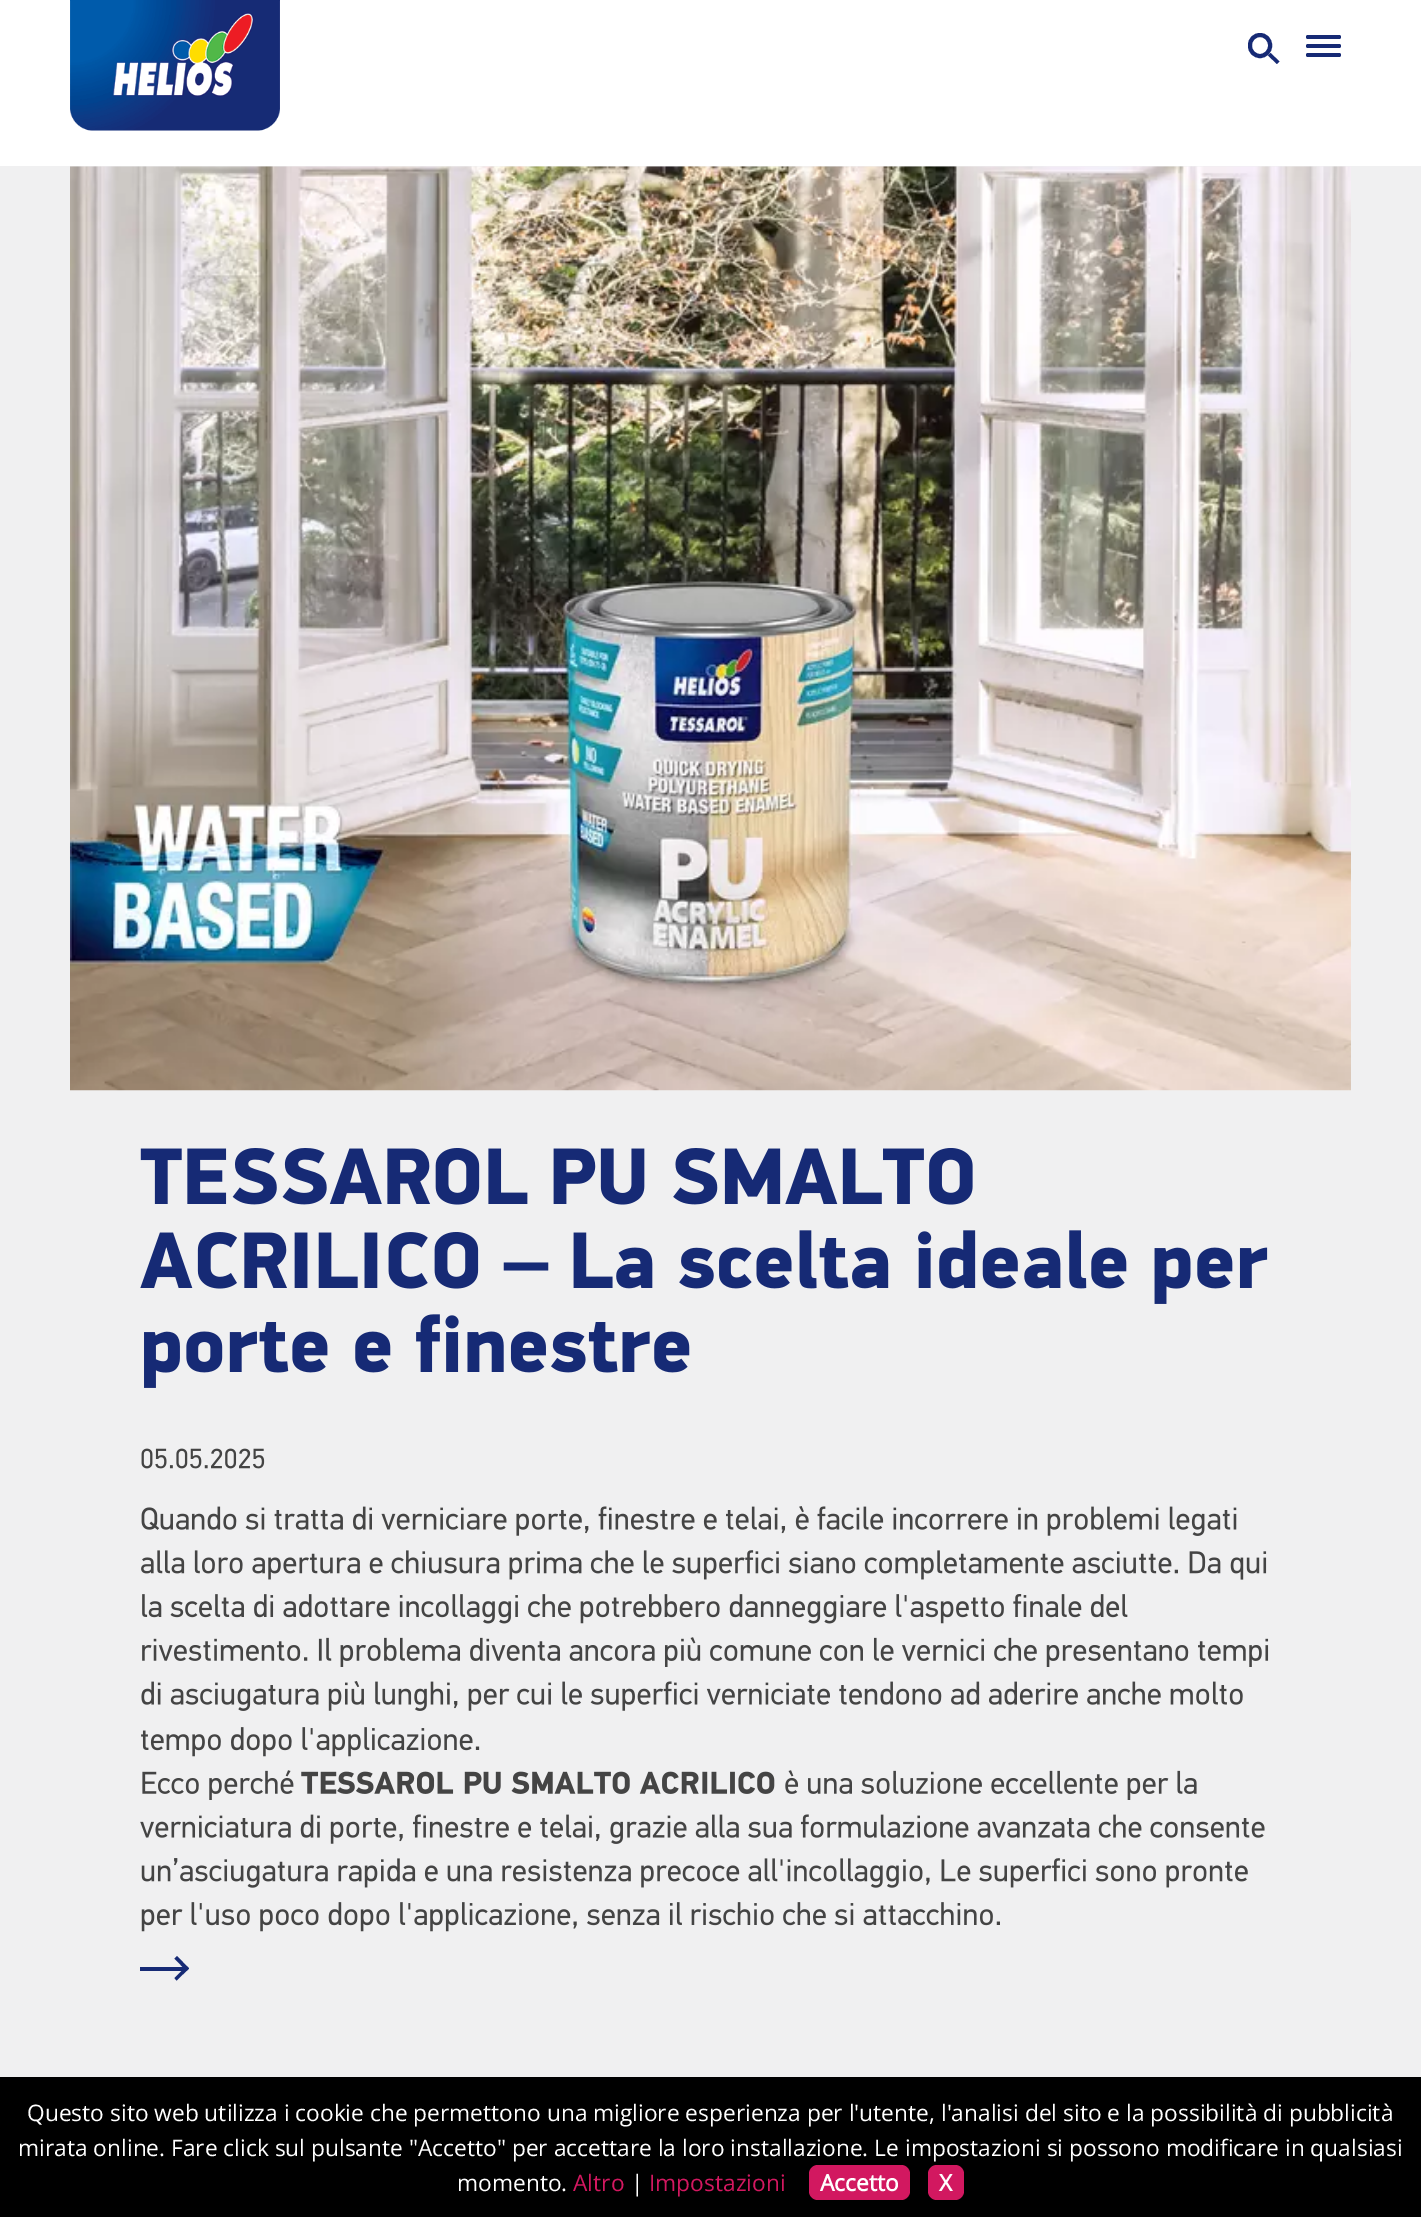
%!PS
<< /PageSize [1421 2217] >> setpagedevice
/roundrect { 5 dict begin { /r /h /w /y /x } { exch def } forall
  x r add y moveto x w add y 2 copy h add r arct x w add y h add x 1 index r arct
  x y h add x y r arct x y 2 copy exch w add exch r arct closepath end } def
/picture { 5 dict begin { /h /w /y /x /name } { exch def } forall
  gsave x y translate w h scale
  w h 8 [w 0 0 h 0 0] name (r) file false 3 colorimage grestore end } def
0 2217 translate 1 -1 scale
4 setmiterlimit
0.941 0.941 0.945 setrgbcolor
0 0 1421 2217 rectfill
1 setgray
0 0 1421 166 rectfill
(img1.rgb) 70 0 210 131 picture
0.086 0.165 0.459 setrgbcolor
4 setlinewidth
1250 35 20 21 10 roundrect stroke
newpath 1270.5 53 moveto 1279.5 61.5 lineto 1277 64 lineto 1268 55.5 lineto closepath fill
1306 44 35 4 2 roundrect fill
1306 35 35 4 2 roundrect fill
1306 53 35 4 2 roundrect fill
(img2.rgb) 70 166 1281 925 picture
(img3.rgb) 140 1148 833 57 picture
(img4.rgb) 140 1232 339 57 picture
/LiberationSans-Bold [80 0 0 -80 0 0] selectfont
504 1288 moveto (‒) show
(img5.rgb) 573 1230 695 74 picture
(img6.rgb) 144 1314 546 74 picture
(img7.rgb) 141 1448 124 21 picture
(img8.rgb) 141 1506 1096 30 picture
(img9.rgb) 141 1550 1126 30 picture
(img10.rgb) 142 1594 986 30 picture
(img11.rgb) 142 1637 1127 30 picture
(img12.rgb) 141 1681 1102 30 picture
(img13.rgb) 141 1727 339 30 picture
(img14.rgb) 142 1770 152 30 picture
(img15.rgb) 301 1771 474 23 picture
(img16.rgb) 785 1770 412 30 picture
(img17.rgb) 140 1814 1125 30 picture
(img18.rgb) 141 1858 1107 30 picture
(img19.rgb) 141 1902 859 30 picture
140 1967 44 4 rectfill
newpath 177 1956 moveto 189 1968.5 lineto 186.5 1971 lineto 174.5 1958.5 lineto closepath fill
newpath 186.5 1966 moveto 189 1968.5 lineto 176.5 1980.5 lineto 174.5 1978 lineto closepath fill
0 setgray
0 2077 1421 140 rectfill
/OpenSans-Regular [22.75 0 0 -22.75 0 0] selectfont
1 setgray
27 2121 moveto (Questo sito web utilizza i cookie che permettono una migliore esperienza per l'utente, l'analisi del sito e la possibilità di pubblicità) show
18 2156 moveto (mirata online. Fare click sul pulsante "Accetto" per accettare la loro installazione. Le impostazioni si possono modificare in qualsiasi) show
457 2191 moveto (momento.) show
0.824 0.094 0.376 setrgbcolor
573 2191 moveto (Altro) show
1 setgray
631 2191 moveto (|) show
0.824 0.094 0.376 setrgbcolor
649 2191 moveto (Impostazioni) show
809 2165 101 35 9 roundrect fill
/OpenSans-Bold [22.75 0 0 -22.75 0 0] selectfont
1 setgray
820 2191 moveto (Accetto) show
0.824 0.094 0.376 setrgbcolor
928 2165 36 35 9 roundrect fill
1 setgray
939 2191 moveto (X) show
showpage
